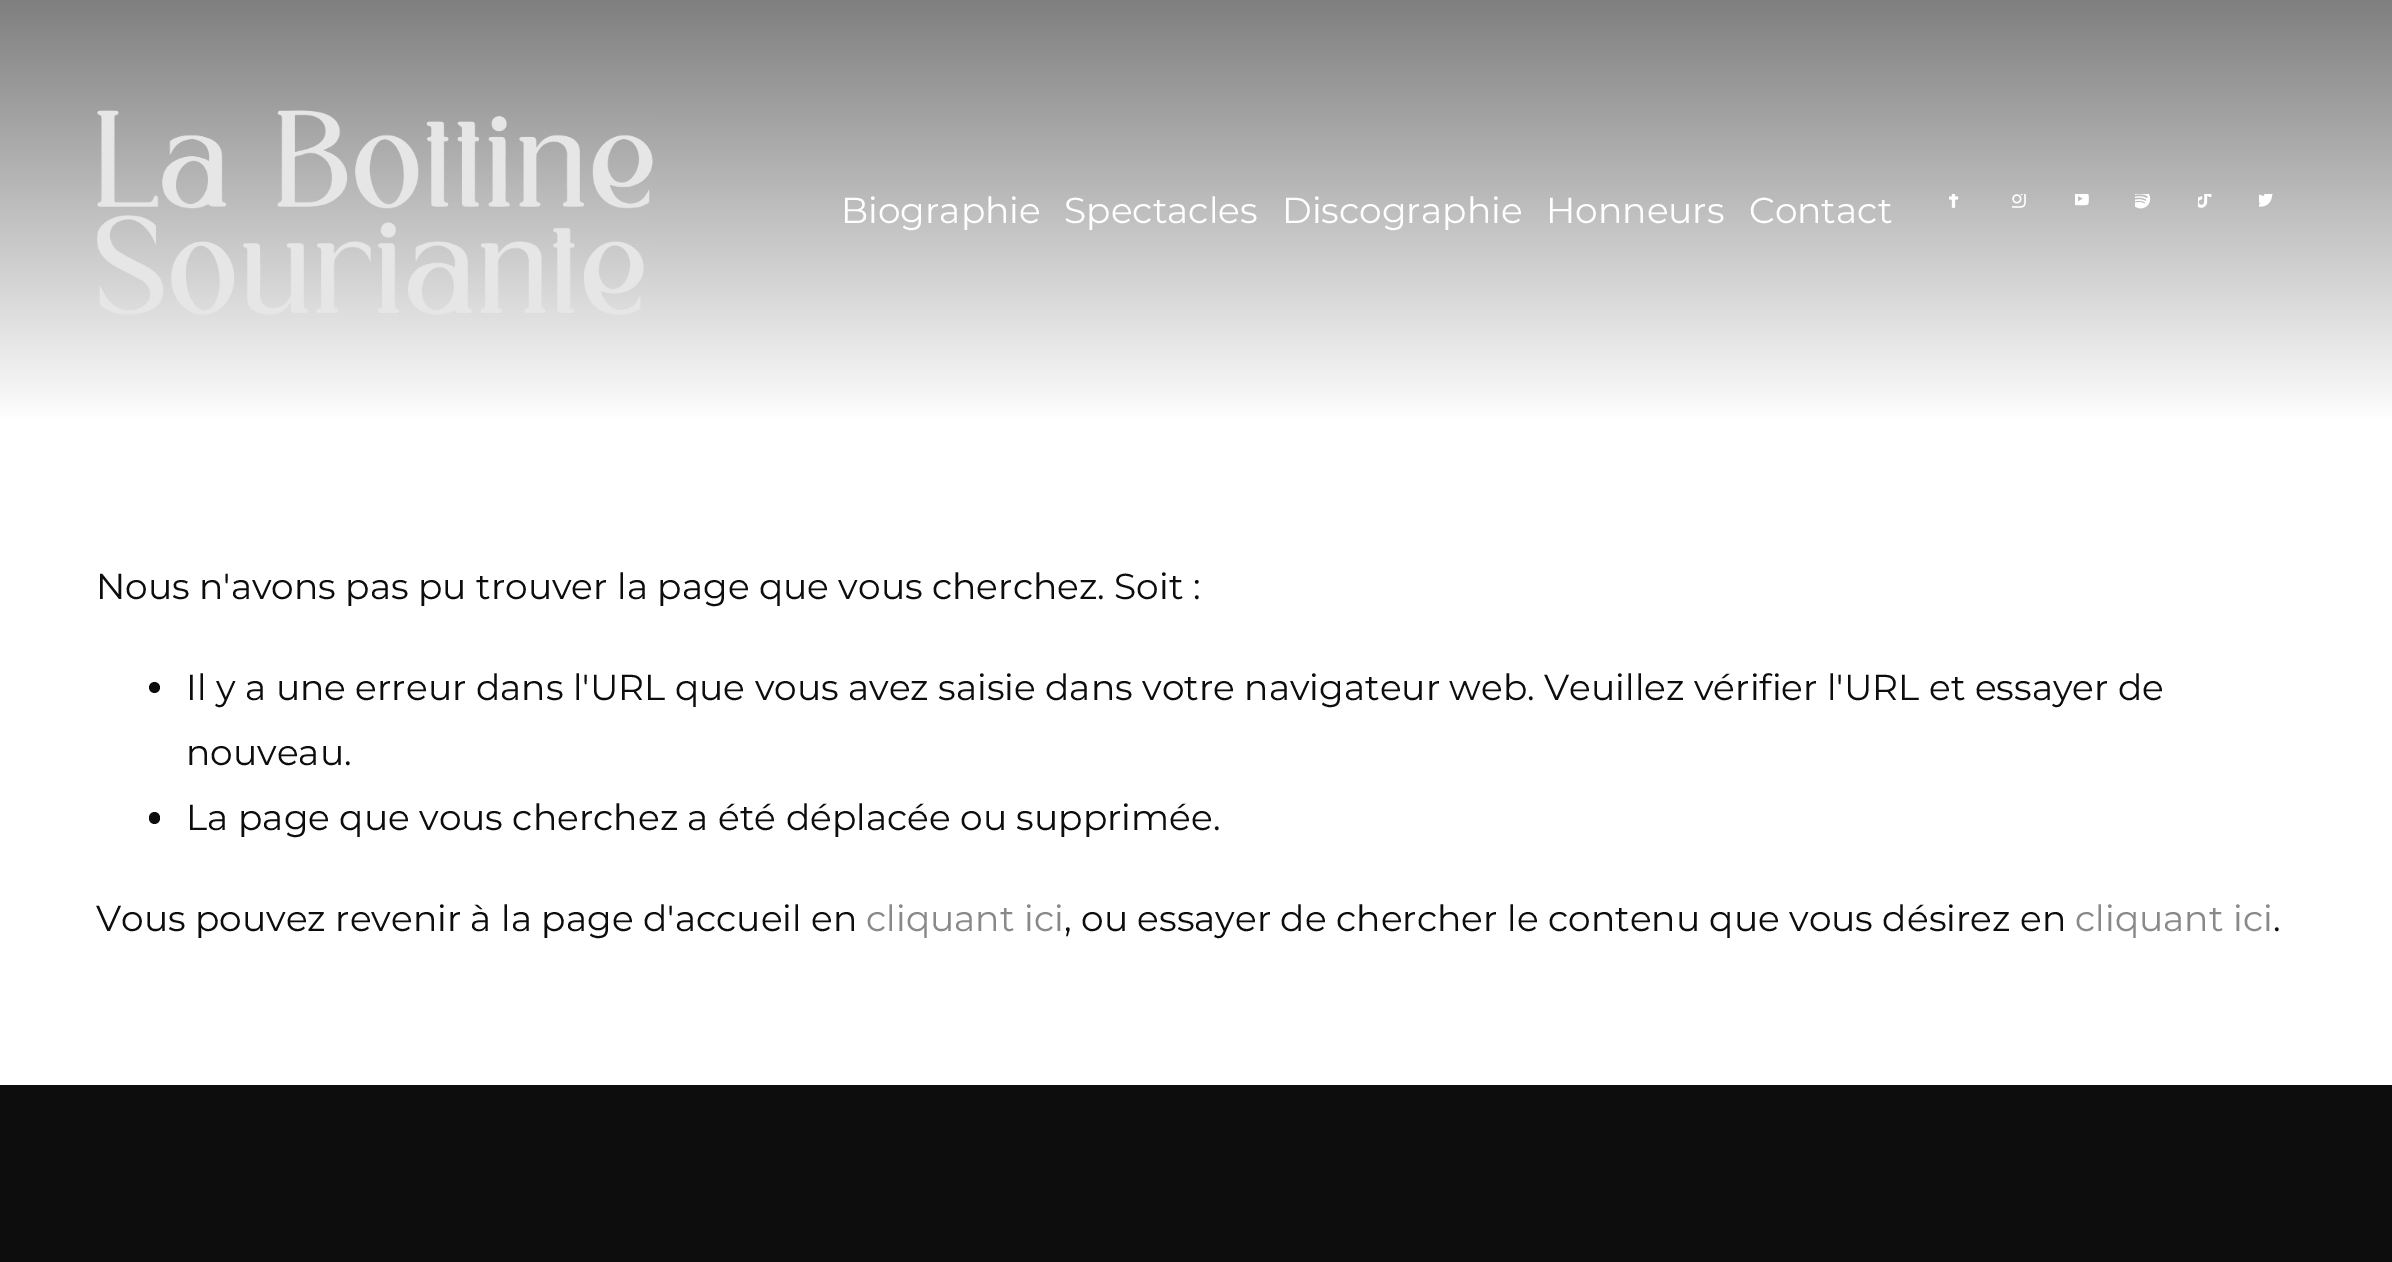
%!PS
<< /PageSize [2392 1262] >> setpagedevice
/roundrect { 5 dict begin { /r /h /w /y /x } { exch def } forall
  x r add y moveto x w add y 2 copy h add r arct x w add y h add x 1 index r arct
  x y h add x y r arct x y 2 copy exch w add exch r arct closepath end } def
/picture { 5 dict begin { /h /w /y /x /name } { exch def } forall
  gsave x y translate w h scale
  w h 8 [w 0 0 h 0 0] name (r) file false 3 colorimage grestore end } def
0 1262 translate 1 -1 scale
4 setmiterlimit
1 setgray
0 0 2392 1262 rectfill
gsave newpath 0 0 moveto 2392 0 lineto 2392 417 lineto 0 417 lineto closepath clip newpath
<< /ShadingType 2 /ColorSpace /DeviceRGB /Coords [1197 0 1197 425] /Extend [true true] /Function << /FunctionType 2 /Domain [0 1] /C0 [0.502 0.498 0.498] /C1 [1 1 1] /N 1 >> >> shfill grestore
(img1.rgb) 97 110 556 205 picture
/Montserrat-Regular [36 0 0 -36 0 0] selectfont
841 223 moveto (Biographie) show
1064 223 moveto (Spectacles) show
1282 223 moveto (Discographie) show
1546 223 moveto (Honneurs) show
1749 223 moveto (Contact) show
(img2.rgb) 1949 194 10 14 picture
(img3.rgb) 2012 194 14 14 picture
(img4.rgb) 2075 194 14 12 picture
(img5.rgb) 2135 194 16 15 picture
(img6.rgb) 2198 194 14 14 picture
(img7.rgb) 2259 194 14 13 picture
0.055 0.051 0.051 setrgbcolor
96 599 moveto (Nous n'avons pas pu trouver la page que vous cherchez. Soit :) show
newpath 154.5 687.5 5.5 0 360 arc closepath fill
186 700 moveto (Il y a une erreur dans l'URL que vous avez saisie dans votre navigateur web. Veuillez vérifier l'URL et essayer de) show
186 765 moveto (nouveau.) show
149 812 11 12 5.5 roundrect fill
186 830 moveto (La page que vous cherchez a été déplacée ou supprimée.) show
96 931 moveto (Vous pouvez revenir à la page d'accueil en) show
0.537 setgray
866 931 moveto (cliquant ici) show
0.055 0.051 0.051 setrgbcolor
1064 931 moveto (, ou essayer de chercher le contenu que vous désirez en) show
0.537 setgray
2075 931 moveto (cliquant ici) show
0.055 0.051 0.051 setrgbcolor
2273 931 moveto (.) show
0 1085 2392 177 rectfill
showpage
